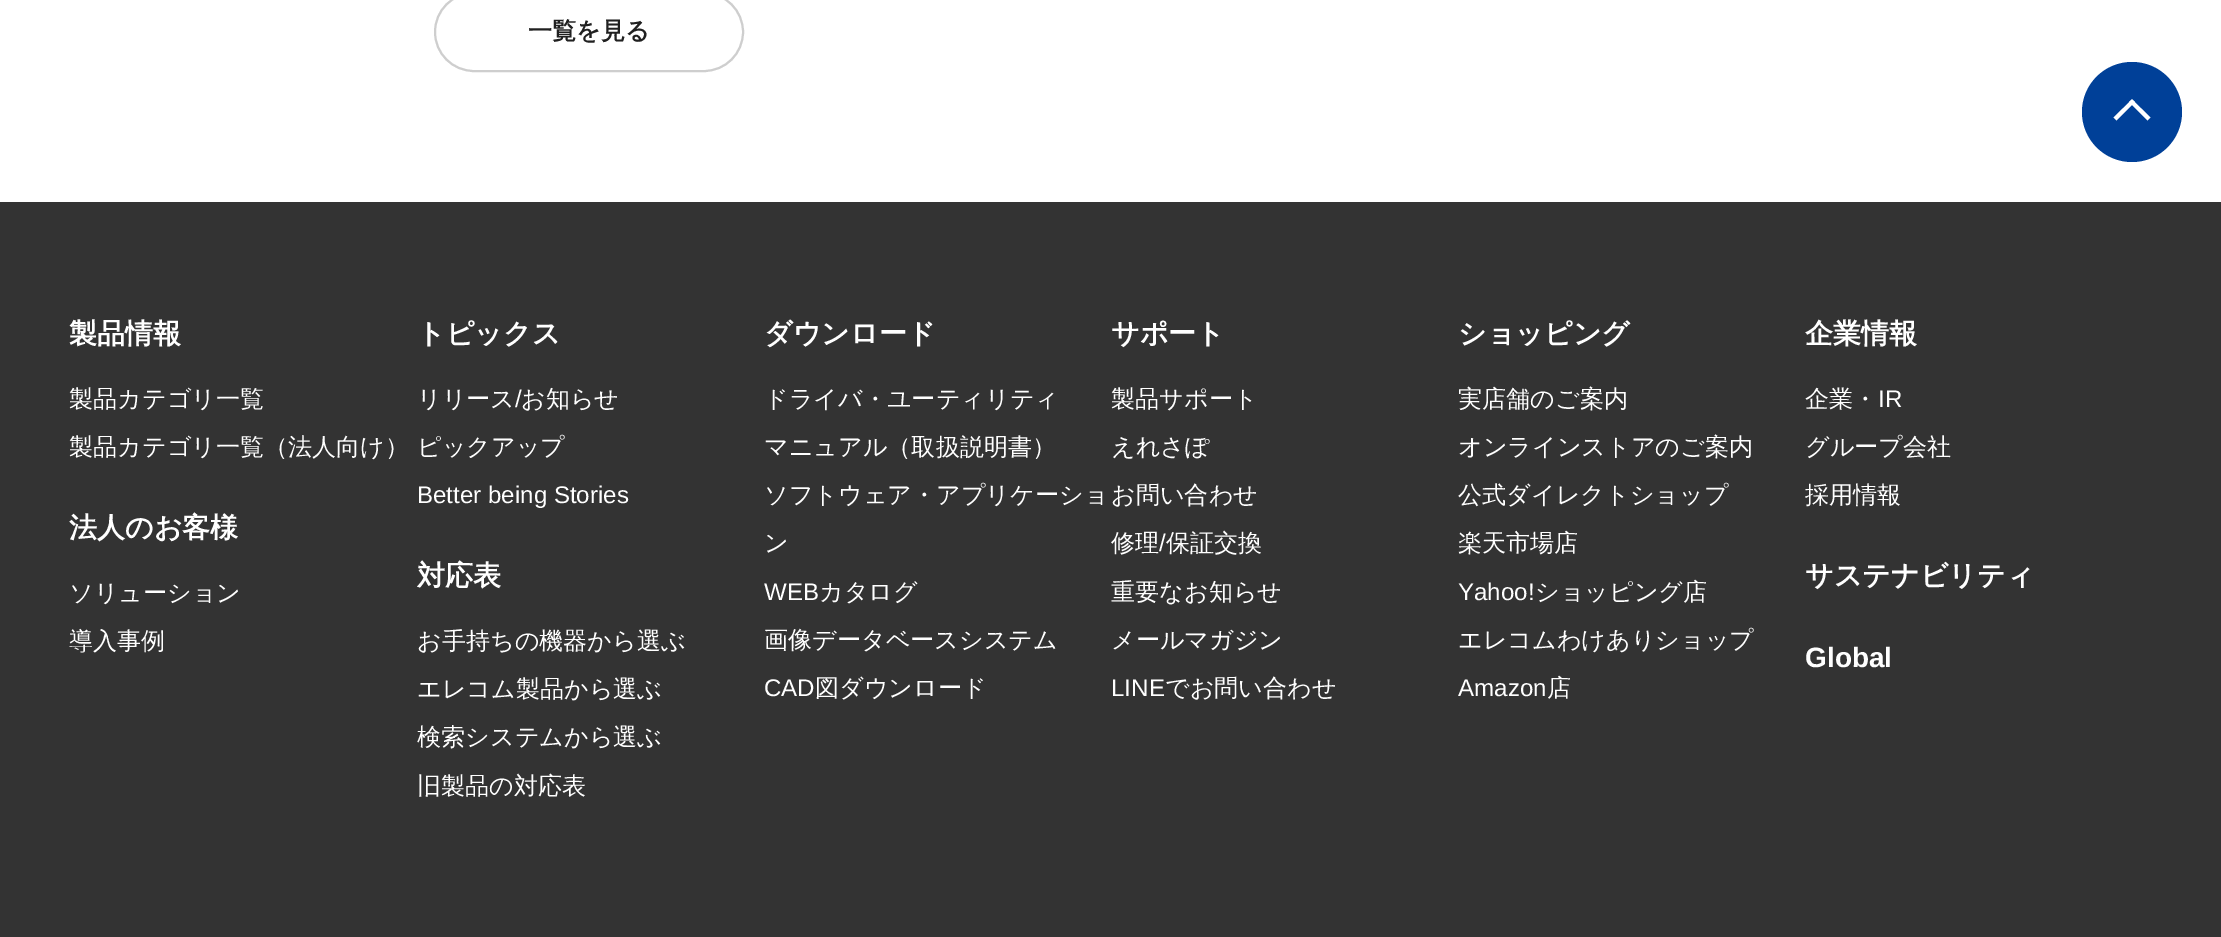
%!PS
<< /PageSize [2221 937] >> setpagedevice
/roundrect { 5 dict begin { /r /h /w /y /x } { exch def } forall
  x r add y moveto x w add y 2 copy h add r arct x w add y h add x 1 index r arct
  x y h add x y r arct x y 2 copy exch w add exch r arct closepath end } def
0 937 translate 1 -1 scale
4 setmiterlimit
1 setgray
0 0 2221 937 rectfill
0.808 setgray
2 setlinewidth
435 -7 308 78 39 roundrect stroke
/WenQuanYiZenHei-Bold [24.1 0 0 -24.1 0 0] selectfont
0.125 setgray
528 39 moveto (一覧を見る) show
0 0.251 0.596 setrgbcolor
newpath 2132 112 50 0 360 arc closepath fill
1 setgray
newpath 2132 99.5 moveto 2150.5 117.5 lineto 2147.5 120.5 lineto 2129 102 lineto closepath fill
newpath 2132 99.5 moveto 2135 102 lineto 2116.5 120.5 lineto 2113.5 117.5 lineto closepath fill
0.2 setgray
0 202 2221 735 rectfill
/WenQuanYiZenHei-Bold [28 0 0 -28 0 0] selectfont
1 setgray
69 343 moveto (製品情報) show
/WenQuanYiZenHei-Medium [24.1 0 0 -24.1 0 0] selectfont
69 407 moveto (製品カテゴリ一覧) show
69 455 moveto (製品カテゴリ一覧（法人向け）) show
/WenQuanYiZenHei-Bold [28 0 0 -28 0 0] selectfont
69 537 moveto (法人のお客様) show
/WenQuanYiZenHei-Medium [24.1 0 0 -24.1 0 0] selectfont
69 601 moveto (ソリューション) show
69 649 moveto (導入事例) show
/WenQuanYiZenHei-Bold [28 0 0 -28 0 0] selectfont
417 343 moveto (トピックス) show
/WenQuanYiZenHei-Medium [24.1 0 0 -24.1 0 0] selectfont
417 407 moveto (リリース) show
/LiberationSans-Regular [24.1 0 0 -24.1 0 0] selectfont
515 407 moveto (/) show
/WenQuanYiZenHei-Medium [24.1 0 0 -24.1 0 0] selectfont
521 407 moveto (お知らせ) show
417 455 moveto (ピックアップ) show
/LiberationSans-Regular [24.1 0 0 -24.1 0 0] selectfont
417 503 moveto (Better being Stories) show
/WenQuanYiZenHei-Bold [28 0 0 -28 0 0] selectfont
417 585 moveto (対応表) show
/WenQuanYiZenHei-Medium [24.1 0 0 -24.1 0 0] selectfont
417 649 moveto (お手持ちの機器から選ぶ) show
417 697 moveto (エレコム製品から選ぶ) show
417 745 moveto (検索システムから選ぶ) show
417 794 moveto (旧製品の対応表) show
/WenQuanYiZenHei-Bold [28 0 0 -28 0 0] selectfont
764 343 moveto (ダウンロード) show
/WenQuanYiZenHei-Medium [24.1 0 0 -24.1 0 0] selectfont
764 407 moveto (ドライバ・ユーティリティ) show
764 455 moveto (マニュアル（取扱説明書）) show
764 503 moveto (ソフトウェア・アプリケーショ) show
764 551 moveto (ン) show
/LiberationSans-Regular [24.1 0 0 -24.1 0 0] selectfont
764 600 moveto (WEB) show
/WenQuanYiZenHei-Medium [24.1 0 0 -24.1 0 0] selectfont
819 600 moveto (カタログ) show
764 648 moveto (画像データベースシステム) show
/LiberationSans-Regular [24.1 0 0 -24.1 0 0] selectfont
764 696 moveto (CAD) show
/WenQuanYiZenHei-Medium [24.1 0 0 -24.1 0 0] selectfont
815 696 moveto (図ダウンロード) show
/WenQuanYiZenHei-Bold [28 0 0 -28 0 0] selectfont
1111 343 moveto (サポート) show
/WenQuanYiZenHei-Medium [24.1 0 0 -24.1 0 0] selectfont
1111 407 moveto (製品サポート) show
1111 455 moveto (えれさぽ) show
1111 503 moveto (お問い合わせ) show
1111 551 moveto (修理) show
/LiberationSans-Regular [24.1 0 0 -24.1 0 0] selectfont
1159 551 moveto (/) show
/WenQuanYiZenHei-Medium [24.1 0 0 -24.1 0 0] selectfont
1166 551 moveto (保証交換) show
1111 600 moveto (重要なお知らせ) show
1111 648 moveto (メールマガジン) show
/LiberationSans-Regular [24.1 0 0 -24.1 0 0] selectfont
1111 696 moveto (LINE) show
/WenQuanYiZenHei-Medium [24.1 0 0 -24.1 0 0] selectfont
1165 696 moveto (でお問い合わせ) show
/WenQuanYiZenHei-Bold [28 0 0 -28 0 0] selectfont
1458 343 moveto (ショッピング) show
/WenQuanYiZenHei-Medium [24.1 0 0 -24.1 0 0] selectfont
1458 407 moveto (実店舗のご案内) show
1458 455 moveto (オンラインストアのご案内) show
1458 503 moveto (公式ダイレクトショップ) show
1458 551 moveto (楽天市場店) show
/LiberationSans-Regular [24.1 0 0 -24.1 0 0] selectfont
1458 600 moveto (Yahoo!) show
/WenQuanYiZenHei-Medium [24.1 0 0 -24.1 0 0] selectfont
1535 600 moveto (ショッピング店) show
1458 648 moveto (エレコムわけありショップ) show
/LiberationSans-Regular [24.1 0 0 -24.1 0 0] selectfont
1458 696 moveto (Amazon) show
/WenQuanYiZenHei-Medium [24.1 0 0 -24.1 0 0] selectfont
1547 696 moveto (店) show
/WenQuanYiZenHei-Bold [28 0 0 -28 0 0] selectfont
1805 343 moveto (企業情報) show
/WenQuanYiZenHei-Medium [24.1 0 0 -24.1 0 0] selectfont
1805 407 moveto (企業・) show
/LiberationSans-Regular [24.1 0 0 -24.1 0 0] selectfont
1878 407 moveto (IR) show
/WenQuanYiZenHei-Medium [24.1 0 0 -24.1 0 0] selectfont
1805 455 moveto (グループ会社) show
1805 503 moveto (採用情報) show
/WenQuanYiZenHei-Bold [28 0 0 -28 0 0] selectfont
1805 585 moveto (サステナビリティ) show
/LiberationSans-Bold [28 0 0 -28 0 0] selectfont
1805 667 moveto (Global) show
showpage
